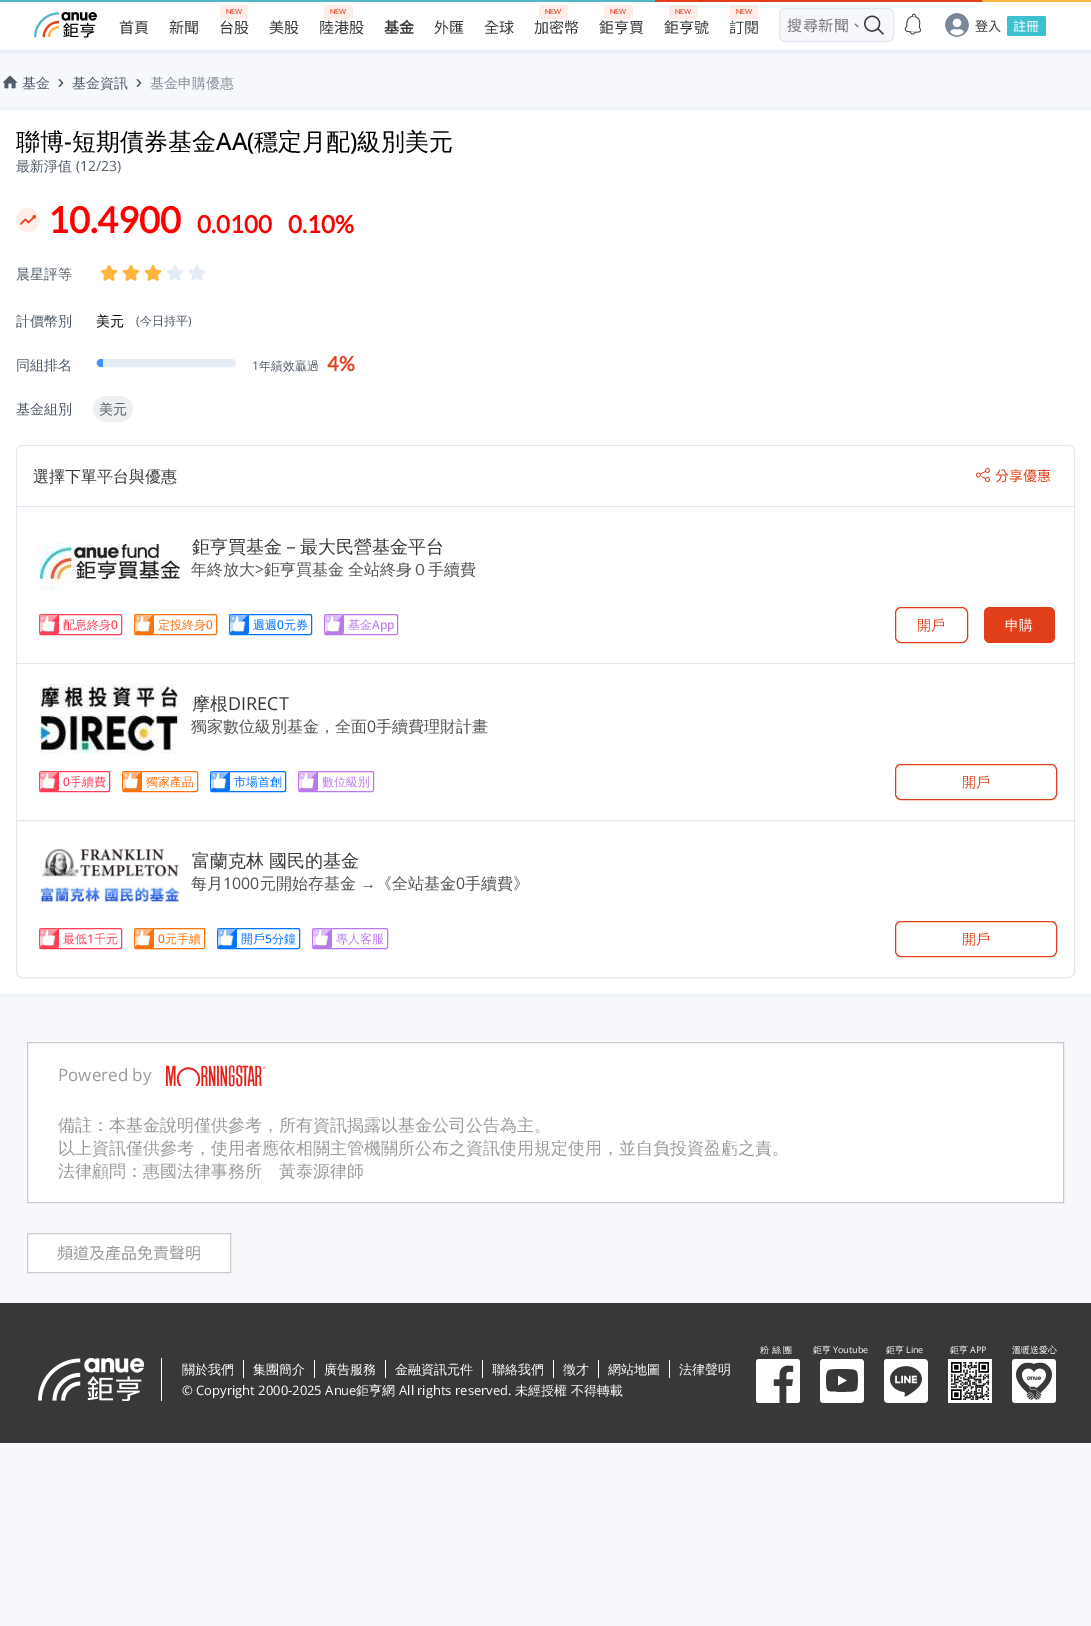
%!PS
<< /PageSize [1091 1626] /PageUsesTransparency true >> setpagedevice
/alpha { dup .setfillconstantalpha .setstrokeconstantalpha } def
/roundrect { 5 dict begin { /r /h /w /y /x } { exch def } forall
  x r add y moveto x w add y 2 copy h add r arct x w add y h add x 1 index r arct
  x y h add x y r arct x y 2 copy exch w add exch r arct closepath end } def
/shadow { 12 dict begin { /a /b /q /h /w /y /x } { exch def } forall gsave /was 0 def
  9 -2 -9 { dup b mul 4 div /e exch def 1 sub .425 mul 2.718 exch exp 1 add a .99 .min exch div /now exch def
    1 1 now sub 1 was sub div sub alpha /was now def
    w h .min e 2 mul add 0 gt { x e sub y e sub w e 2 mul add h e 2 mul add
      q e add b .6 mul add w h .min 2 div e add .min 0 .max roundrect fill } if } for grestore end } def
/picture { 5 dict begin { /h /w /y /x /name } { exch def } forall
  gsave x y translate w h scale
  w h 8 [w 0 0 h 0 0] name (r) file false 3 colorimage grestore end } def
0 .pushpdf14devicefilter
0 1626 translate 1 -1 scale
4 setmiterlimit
0.965 0.973 0.988 setrgbcolor
0 0 1091 1626 rectfill
0 0.255 0.561 setrgbcolor
0 2 1091 50 0 3 0.1 shadow
1 setgray
0 2 1091 48 rectfill
0.329 0.71 0.776 setrgbcolor
0 0 655 2 rectfill
0.878 0.247 0.098 setrgbcolor
655 0 327 2 rectfill
1 0.706 0.243 setrgbcolor
982 0 109 2 rectfill
(img1.rgb) 34 12 63 26 picture
/NotoSansCJKTC-Regular [15 0 0 -15 0 0] selectfont
0.22 setgray
119 33 moveto (首頁) show
169 33 moveto (新聞) show
0.996 0.929 0.914 setrgbcolor
220 5 28 14 3 roundrect fill
/Lato-Regular [7 0 0 -7 0 0] selectfont
0.878 0.247 0.098 setrgbcolor
226 14 moveto (NEW) show
/NotoSansCJKTC-Regular [15 0 0 -15 0 0] selectfont
0.22 setgray
219 33 moveto (台股) show
269 33 moveto (美股) show
0.996 0.929 0.914 setrgbcolor
324 5 29 14 3 roundrect fill
/Lato-Regular [7 0 0 -7 0 0] selectfont
0.878 0.247 0.098 setrgbcolor
330 14 moveto (NEW) show
/NotoSansCJKTC-Regular [15 0 0 -15 0 0] selectfont
0.22 setgray
319 33 moveto (陸港股) show
/NotoSansCJKTC-Bold [15 0 0 -15 0 0] selectfont
384 33 moveto (基金) show
/NotoSansCJKTC-Regular [15 0 0 -15 0 0] selectfont
434 33 moveto (外匯) show
484 33 moveto (全球) show
0.996 0.929 0.914 setrgbcolor
539 5 29 14 3 roundrect fill
/Lato-Regular [7 0 0 -7 0 0] selectfont
0.878 0.247 0.098 setrgbcolor
545 14 moveto (NEW) show
/NotoSansCJKTC-Regular [15 0 0 -15 0 0] selectfont
0.22 setgray
534 33 moveto (加密幣) show
0.996 0.929 0.914 setrgbcolor
604 5 29 14 3 roundrect fill
/Lato-Regular [7 0 0 -7 0 0] selectfont
0.878 0.247 0.098 setrgbcolor
610 14 moveto (NEW) show
/NotoSansCJKTC-Regular [15 0 0 -15 0 0] selectfont
0.22 setgray
599 33 moveto (鉅亨買) show
0.996 0.929 0.914 setrgbcolor
669 5 29 14 3 roundrect fill
/Lato-Regular [7 0 0 -7 0 0] selectfont
0.878 0.247 0.098 setrgbcolor
675 14 moveto (NEW) show
/NotoSansCJKTC-Regular [15 0 0 -15 0 0] selectfont
0.22 setgray
664 33 moveto (鉅亨號) show
0.996 0.929 0.914 setrgbcolor
730 5 28 14 3 roundrect fill
/Lato-Regular [7 0 0 -7 0 0] selectfont
0.878 0.247 0.098 setrgbcolor
736 14 moveto (NEW) show
/NotoSansCJKTC-Regular [15 0 0 -15 0 0] selectfont
0.22 setgray
729 33 moveto (訂閱) show
0.965 0.973 0.988 setrgbcolor
779.5 8.5 114 33 5.5 roundrect gsave fill grestore
0.886 0.91 0.945 setrgbcolor
stroke
0.459 setgray
787 31 moveto 0.5 0 (搜尋新聞、) ashow
(img2.rgb) 864 15 20 20 picture
(img3.rgb) 904 13 17 22 picture
(img4.rgb) 945 13 24 24 picture
/NotoSansCJKTC-Regular [13 0 0 -13 0 0] selectfont
0.22 setgray
975 31 moveto (登入) show
0.243 0.757 0.808 setrgbcolor
1007 16 39 20 2 roundrect fill
1 setgray
1013 31 moveto (註冊) show
(img5.rgb) 2 75 16 14 picture
/WenQuanYiZenHei-Medium [14 0 0 -14 0 0] selectfont
0.318 0.361 0.412 setrgbcolor
22 88 moveto (基金) show
(img6.rgb) 58 79 6 8 picture
72 88 moveto (基金資訊) show
(img6.rgb) 136 79 6 8 picture
0.518 0.553 0.592 setrgbcolor
150 88 moveto (基金申購優惠) show
0 0.255 0.561 setrgbcolor
0 110 1091 884 0 3 0.1 shadow
1 setgray
0 110 1091 884 rectfill
/WenQuanYiZenHei-Medium [24 0 0 -24 0 0] selectfont
0 setgray
16 150 moveto (聯博) show
72 150 moveto (短期債券基金) show
/OpenSans-Medium [24 0 0 -24 0 0] selectfont
216 150 moveto (AA\() show
/WenQuanYiZenHei-Medium [24 0 0 -24 0 0] selectfont
254 150 moveto (穩定月配 級別美元) show
/OpenSans-Medium [24 0 0 -24 0 0] selectfont
64 150 moveto (-) show
350 150 moveto (\)) show
/WenQuanYiZenHei-Medium [14 0 0 -14 0 0] selectfont
0.318 0.361 0.412 setrgbcolor
16 171 moveto (最新淨值) show
/OpenSans-Regular [14 0 0 -14 0 0] selectfont
76 171 moveto (\(12/23\)) show
(img7.rgb) 16 208 24 24 picture
/Lato-Bold [36 0 0 -36 0 0] selectfont
1 0 0 setrgbcolor
48 233 moveto (10.4900) show
/Lato-Bold [24 0 0 -24 0 0] selectfont
197 233 moveto (0.0100) show
288 233 moveto (0.10%) show
/WenQuanYiZenHei-Medium [14 0 0 -14 0 0] selectfont
0.318 0.361 0.412 setrgbcolor
16 279 moveto (晨星評等) show
(img8.rgb) 100 264 18 17 picture
(img8.rgb) 122 264 18 17 picture
(img8.rgb) 144 264 18 17 picture
(img9.rgb) 166 265 18 16 picture
(img9.rgb) 188 265 18 16 picture
16 326 moveto (計價幣別) show
0 setgray
96 326 moveto (美元) show
/OpenSans-Regular [12 0 0 -12 0 0] selectfont
0.318 0.361 0.412 setrgbcolor
136 325 moveto (\() show
/WenQuanYiZenHei-Medium [12 0 0 -12 0 0] selectfont
140 325 moveto (今日持平) show
/OpenSans-Regular [12 0 0 -12 0 0] selectfont
188 325 moveto (\)) show
/WenQuanYiZenHei-Medium [14 0 0 -14 0 0] selectfont
16 370 moveto (同組排名) show
0.902 0.925 0.961 setrgbcolor
96.5 359.5 139 7 3.5 roundrect gsave fill grestore
stroke
0.239 0.569 1 setrgbcolor
newpath 101 359 moveto 103 359 lineto 103 367 lineto 101 367 lineto 99 367 97 365 97 363 curveto 97 361 99 359 101 359 curveto closepath fill
/OpenSans-Regular [12 0 0 -12 0 0] selectfont
0.318 0.361 0.412 setrgbcolor
252 370 moveto (1) show
/WenQuanYiZenHei-Medium [12 0 0 -12 0 0] selectfont
259 370 moveto (年績效贏過) show
/Lato-Bold [20 0 0 -20 0 0] selectfont
0.878 0.247 0.098 setrgbcolor
327 371 moveto (4%) show
/WenQuanYiZenHei-Medium [14 0 0 -14 0 0] selectfont
0.318 0.361 0.412 setrgbcolor
16 414 moveto (基金組別) show
0.933 0.937 0.941 setrgbcolor
93 396 40 26 13 roundrect fill
0.318 0.361 0.412 setrgbcolor
99 414 moveto (美元) show
0.886 0.91 0.945 setrgbcolor
newpath 22 445 moveto 1069 445 lineto 1072 445 1075 448 1075 451 curveto 1075 506 lineto 16 506 lineto 16 451 lineto 16 448 19 445 22 445 curveto closepath 22 446 moveto 1069 446 lineto 1072 446 1074 448 1074 451 curveto 1074 506 lineto 17 506 lineto 17 451 lineto 17 448 19 446 22 446 curveto closepath eofill
/WenQuanYiZenHei-Medium [16 0 0 -16 0 0] selectfont
0.22 setgray
33 482 moveto (選擇下單平台與優惠) show
(img10.rgb) 976 468 14 14 picture
/NotoSansCJKTC-Regular [14 0 0 -14 0 0] selectfont
0.878 0.247 0.098 setrgbcolor
995 481 moveto (分享優惠) show
0.886 0.91 0.945 setrgbcolor
16 506 1059 1 rectfill
1074 506 1 157 rectfill
16 506 1 157 rectfill
(img11.rgb) 40 542 140 50 picture
/WenQuanYiZenHei-Medium [18 0 0 -18 0 0] selectfont
0.22 setgray
192 553 moveto (鉅亨買基金－最大民營基金平台) show
/WenQuanYiZenHei-Medium [16 0 0 -16 0 0] selectfont
0.329 setgray
191 575 moveto (年終放大) show
/OpenSans-Regular [16 0 0 -16 0 0] selectfont
255 575 moveto (>) show
/WenQuanYiZenHei-Medium [16 0 0 -16 0 0] selectfont
264 575 moveto -1 0 32 (鉅亨買基金 全站終身０手續費) widthshow
1 0.239 0.341 setrgbcolor
39.5 614.5 82 20 1.5 roundrect stroke
(img12.rgb) 39 614 20 20 picture
/WenQuanYiZenHei-Medium [12 0 0 -12 0 0] selectfont
63 629 moveto (配息終身) show
/OpenSans-Medium [12 0 0 -12 0 0] selectfont
111 629 moveto (0) show
1 0.447 0.043 setrgbcolor
134.5 614.5 82 20 1.5 roundrect stroke
(img13.rgb) 134 614 20 20 picture
/WenQuanYiZenHei-Medium [12 0 0 -12 0 0] selectfont
158 629 moveto (定投終身) show
/OpenSans-Medium [12 0 0 -12 0 0] selectfont
206 629 moveto (0) show
0 0.451 1 setrgbcolor
229.5 614.5 82 20 1.5 roundrect stroke
(img14.rgb) 229 614 20 20 picture
/WenQuanYiZenHei-Medium [12 0 0 -12 0 0] selectfont
253 629 moveto (週週) show
/OpenSans-Medium [12 0 0 -12 0 0] selectfont
277 629 moveto (0) show
/WenQuanYiZenHei-Medium [12 0 0 -12 0 0] selectfont
284 629 moveto (元券) show
0.729 0.471 0.941 setrgbcolor
324.5 614.5 73 20 1.5 roundrect stroke
(img15.rgb) 324 614 20 20 picture
348 629 moveto (基金) show
/OpenSans-Medium [12 0 0 -12 0 0] selectfont
372 629 moveto (App) show
0.878 0.247 0.098 setrgbcolor
895.5 607.5 72 35 5.5 roundrect stroke
/WenQuanYiZenHei-Medium [14 0 0 -14 0 0] selectfont
917 630 moveto (開戶) show
984 607 71 36 6 roundrect fill
1 setgray
1005 630 moveto (申購) show
0.886 0.91 0.945 setrgbcolor
16 663 1059 1 rectfill
1074 663 1 157 rectfill
16 663 1 157 rectfill
(img16.rgb) 40 684 140 70 picture
/WenQuanYiZenHei-Medium [18 0 0 -18 0 0] selectfont
0.22 setgray
192 710 moveto (摩根) show
/OpenSans-Regular [18 0 0 -18 0 0] selectfont
228 710 moveto (DIRECT) show
/WenQuanYiZenHei-Medium [16 0 0 -16 0 0] selectfont
0.329 setgray
191 732 moveto (獨家數位級別基金，全面) show
/OpenSans-Regular [16 0 0 -16 0 0] selectfont
367 732 moveto (0) show
/WenQuanYiZenHei-Medium [16 0 0 -16 0 0] selectfont
376 732 moveto (手續費理財計畫) show
1 0.239 0.341 setrgbcolor
39.5 771.5 70 20 1.5 roundrect stroke
(img12.rgb) 39 771 20 20 picture
/OpenSans-Medium [12 0 0 -12 0 0] selectfont
63 786 moveto (0) show
/WenQuanYiZenHei-Medium [12 0 0 -12 0 0] selectfont
70 786 moveto (手續費) show
1 0.447 0.043 setrgbcolor
122.5 771.5 75 20 1.5 roundrect stroke
(img13.rgb) 122 771 20 20 picture
146 786 moveto (獨家產品) show
0 0.451 1 setrgbcolor
210.5 771.5 75 20 1.5 roundrect stroke
(img14.rgb) 210 771 20 20 picture
234 786 moveto (市場首創) show
0.729 0.471 0.941 setrgbcolor
298.5 771.5 75 20 1.5 roundrect stroke
(img15.rgb) 298 771 20 20 picture
322 786 moveto (數位級別) show
0.878 0.247 0.098 setrgbcolor
895.5 764.5 161 35 5.5 roundrect stroke
/WenQuanYiZenHei-Medium [14 0 0 -14 0 0] selectfont
962 787 moveto (開戶) show
0.886 0.91 0.945 setrgbcolor
newpath 16.5 820.5 moveto 1074.5 820.5 lineto 1074.5 972 lineto 1074.5 975 1072 977.5 1069 977.5 curveto 22 977.5 lineto 19 977.5 16.5 975 16.5 972 curveto closepath stroke
(img17.rgb) 40 848 140 57 picture
/WenQuanYiZenHei-Medium [18 0 0 -18 0 0] selectfont
0.22 setgray
192 867 moveto (富蘭克林) show
269 867 moveto (國民的基金) show
/WenQuanYiZenHei-Medium [16 0 0 -16 0 0] selectfont
0.329 setgray
191 889 moveto (每月) show
/OpenSans-Regular [16 0 0 -16 0 0] selectfont
223 889 moveto (1000) show
/WenQuanYiZenHei-Medium [16 0 0 -16 0 0] selectfont
260 889 moveto (元開始存基金) show
/LiberationSans-Regular [16 0 0 -16 0 0] selectfont
360 889 moveto (→) show
/WenQuanYiZenHei-Medium [16 0 0 -16 0 0] selectfont
376 889 moveto (《全站基金) show
/OpenSans-Regular [16 0 0 -16 0 0] selectfont
456 889 moveto (0) show
/WenQuanYiZenHei-Medium [16 0 0 -16 0 0] selectfont
465 889 moveto (手續費》) show
1 0.239 0.341 setrgbcolor
39.5 928.5 82 20 1.5 roundrect stroke
(img12.rgb) 39 928 20 20 picture
/WenQuanYiZenHei-Medium [12 0 0 -12 0 0] selectfont
63 943 moveto (最低) show
/OpenSans-Medium [12 0 0 -12 0 0] selectfont
87 943 moveto (1) show
/WenQuanYiZenHei-Medium [12 0 0 -12 0 0] selectfont
94 943 moveto (千元) show
1 0.447 0.043 setrgbcolor
134.5 928.5 70 20 1.5 roundrect stroke
(img13.rgb) 134 928 20 20 picture
/OpenSans-Medium [12 0 0 -12 0 0] selectfont
158 943 moveto (0) show
/WenQuanYiZenHei-Medium [12 0 0 -12 0 0] selectfont
165 943 moveto (元手續) show
0 0.451 1 setrgbcolor
217.5 928.5 82 20 1.5 roundrect stroke
(img14.rgb) 217 928 20 20 picture
241 943 moveto (開戶) show
/OpenSans-Medium [12 0 0 -12 0 0] selectfont
265 943 moveto (5) show
/WenQuanYiZenHei-Medium [12 0 0 -12 0 0] selectfont
272 943 moveto (分鐘) show
0.729 0.471 0.941 setrgbcolor
312.5 928.5 75 20 1.5 roundrect stroke
(img15.rgb) 312 928 20 20 picture
336 943 moveto (專人客服) show
0.878 0.247 0.098 setrgbcolor
895.5 921.5 161 35 5.5 roundrect stroke
/WenQuanYiZenHei-Medium [14 0 0 -14 0 0] selectfont
962 944 moveto (開戶) show
1 setgray
newpath 27.5 1042.5 moveto 1063.5 1042.5 lineto 1063.5 1202.5 lineto 27.5 1202.5 lineto closepath gsave fill grestore
0.8 setgray
stroke
/OpenSans-Regular [17 0 0 -17 0 0] selectfont
0.608 setgray
58 1081 moveto (Powered by) show
(img18.rgb) 166 1065 100 22 picture
/WenQuanYiZenHei-Medium [17 0 0 -17 0 0] selectfont
58 1131 moveto (備註：本基金說明僅供參考，所有資訊揭露以基金公司公告為主。) show
58 1154 moveto (以上資訊僅供參考，使用者應依相關主管機關所公布之資訊使用規定使用，並自負投資盈虧之責。) show
58 1177 moveto (法律顧問：惠國法律事務所　黃泰源律師) show
1 setgray
newpath 27.5 1233.5 moveto 230.5 1233.5 lineto 230.5 1272.5 lineto 27.5 1272.5 lineto closepath gsave fill grestore
0.8 setgray
stroke
/NotoSansCJKTC-Regular [16 0 0 -16 0 0] selectfont
0.608 setgray
57 1259 moveto (頻道及產品免責聲明) show
0.22 setgray
0 1303 1091 140 rectfill
/WenQuanYiZenHei-Medium [9 0 0 -9 0 0] selectfont
1 setgray
760 1353 moveto (粉 絲 團) show
(img19.rgb) 756 1359 44 44 picture
813 1353 moveto (鉅亨) show
/OpenSans-Regular [9 0 0 -9 0 0] selectfont
833 1353 moveto (Youtube) show
(img20.rgb) 820 1359 44 44 picture
/WenQuanYiZenHei-Medium [9 0 0 -9 0 0] selectfont
886 1353 moveto (鉅亨) show
/OpenSans-Regular [9 0 0 -9 0 0] selectfont
906 1353 moveto (Line) show
(img21.rgb) 884 1359 44 44 picture
/WenQuanYiZenHei-Medium [9 0 0 -9 0 0] selectfont
950 1353 moveto (鉅亨) show
/OpenSans-Regular [9 0 0 -9 0 0] selectfont
970 1353 moveto (APP) show
(img22.rgb) 948 1359 44 44 picture
/WenQuanYiZenHei-Medium [9 0 0 -9 0 0] selectfont
1012 1353 moveto (溫暖送愛心) show
(img23.rgb) 1012 1359 44 44 picture
(img24.rgb) 38 1358 106 43 picture
161 1358 1 43 rectfill
/WenQuanYiZenHei-Medium [13 0 0 -13 0 0] selectfont
182 1374 moveto (關於我們) show
253 1374 moveto (集團簡介) show
243 1360 1 18 rectfill
324 1374 moveto (廣告服務) show
314 1360 1 18 rectfill
395 1374 moveto (金融資訊元件) show
385 1360 1 18 rectfill
492 1374 moveto (聯絡我們) show
482 1360 1 18 rectfill
563 1374 moveto (徵才) show
553 1360 1 18 rectfill
608 1374 moveto (網站地圖) show
598 1360 1 18 rectfill
679 1374 moveto (法律聲明) show
669 1360 1 18 rectfill
/OpenSans-Regular [13 0 0 -13 0 0] selectfont
182 1395 moveto (© Copyright 2000-2025 Anue) show
/WenQuanYiZenHei-Medium [13 0 0 -13 0 0] selectfont
356 1395 moveto (鉅亨網) show
/OpenSans-Regular [13 0 0 -13 0 0] selectfont
399 1395 moveto (All rights reserved.) show
/WenQuanYiZenHei-Medium [13 0 0 -13 0 0] selectfont
515 1395 moveto (未經授權 不得轉載) show
.poppdf14devicefilter showpage
